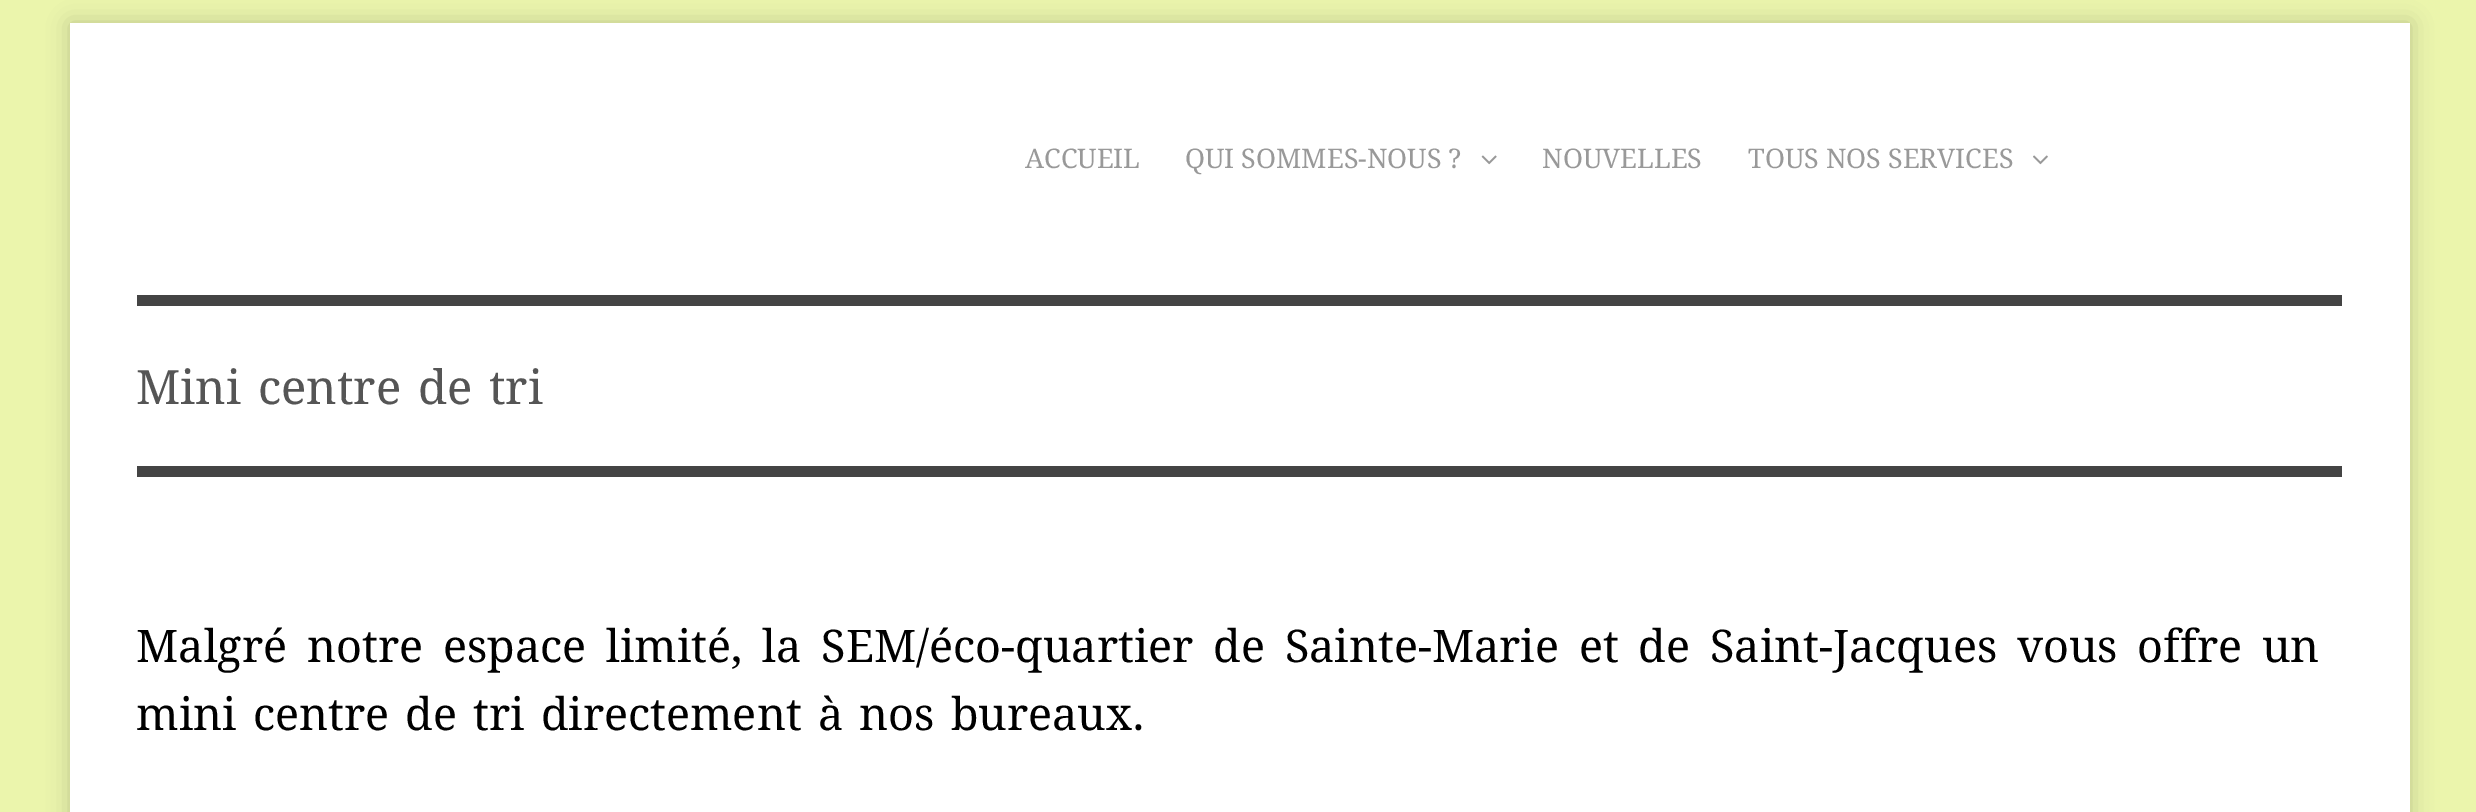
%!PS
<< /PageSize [2476 812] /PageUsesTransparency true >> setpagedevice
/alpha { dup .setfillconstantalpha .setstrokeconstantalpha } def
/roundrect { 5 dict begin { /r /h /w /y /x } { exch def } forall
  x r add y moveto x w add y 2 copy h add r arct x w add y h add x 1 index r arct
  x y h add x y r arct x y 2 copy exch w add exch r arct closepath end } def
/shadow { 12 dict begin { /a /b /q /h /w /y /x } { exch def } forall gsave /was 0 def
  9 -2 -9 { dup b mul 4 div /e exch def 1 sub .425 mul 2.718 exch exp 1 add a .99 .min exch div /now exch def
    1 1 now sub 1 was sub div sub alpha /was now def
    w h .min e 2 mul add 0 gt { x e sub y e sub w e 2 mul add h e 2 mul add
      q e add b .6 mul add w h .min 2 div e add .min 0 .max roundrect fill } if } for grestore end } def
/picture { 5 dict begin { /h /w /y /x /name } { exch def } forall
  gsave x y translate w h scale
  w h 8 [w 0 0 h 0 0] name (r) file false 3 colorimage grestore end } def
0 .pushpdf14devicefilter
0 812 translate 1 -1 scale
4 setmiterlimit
0.922 0.961 0.675 setrgbcolor
0 0 2476 812 rectfill
0 setgray
70 23 2340 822 0 11 0.2 shadow
1 setgray
70 23 2340 789 rectfill
0.267 setgray
137 295 2205 11 rectfill
/DroidSerif-Regular [27 0 0 -27 0 0] selectfont
0.6 setgray
1025 168 moveto (ACCUEIL) show
1185 168 moveto (QUI SOMMES-NOUS ?) show
(img1.rgb) 1481 155 16 10 picture
1542 168 moveto (NOUVELLES) show
1748 168 moveto (TOUS NOS SERVICES) show
(img2.rgb) 2033 155 15 10 picture
0.267 setgray
137 466 2205 11 rectfill
/DroidSerif-Regular [47.25 0 0 -47.25 0 0] selectfont
0.333 setgray
136 404 moveto 4.5 0 32 (Mini centre de tri) widthshow
/DroidSerif-Regular [45 0 0 -45 0 0] selectfont
0 setgray
136 662 moveto 8.1 0 32 (Malgré notre espace limité, la SEM/éco-quartier de Sainte-Marie et de Saint-Jacques vous offre un) widthshow
136 730 moveto 4.5 0 32 (mini centre de tri directement à nos bureaux.) widthshow
.poppdf14devicefilter showpage
